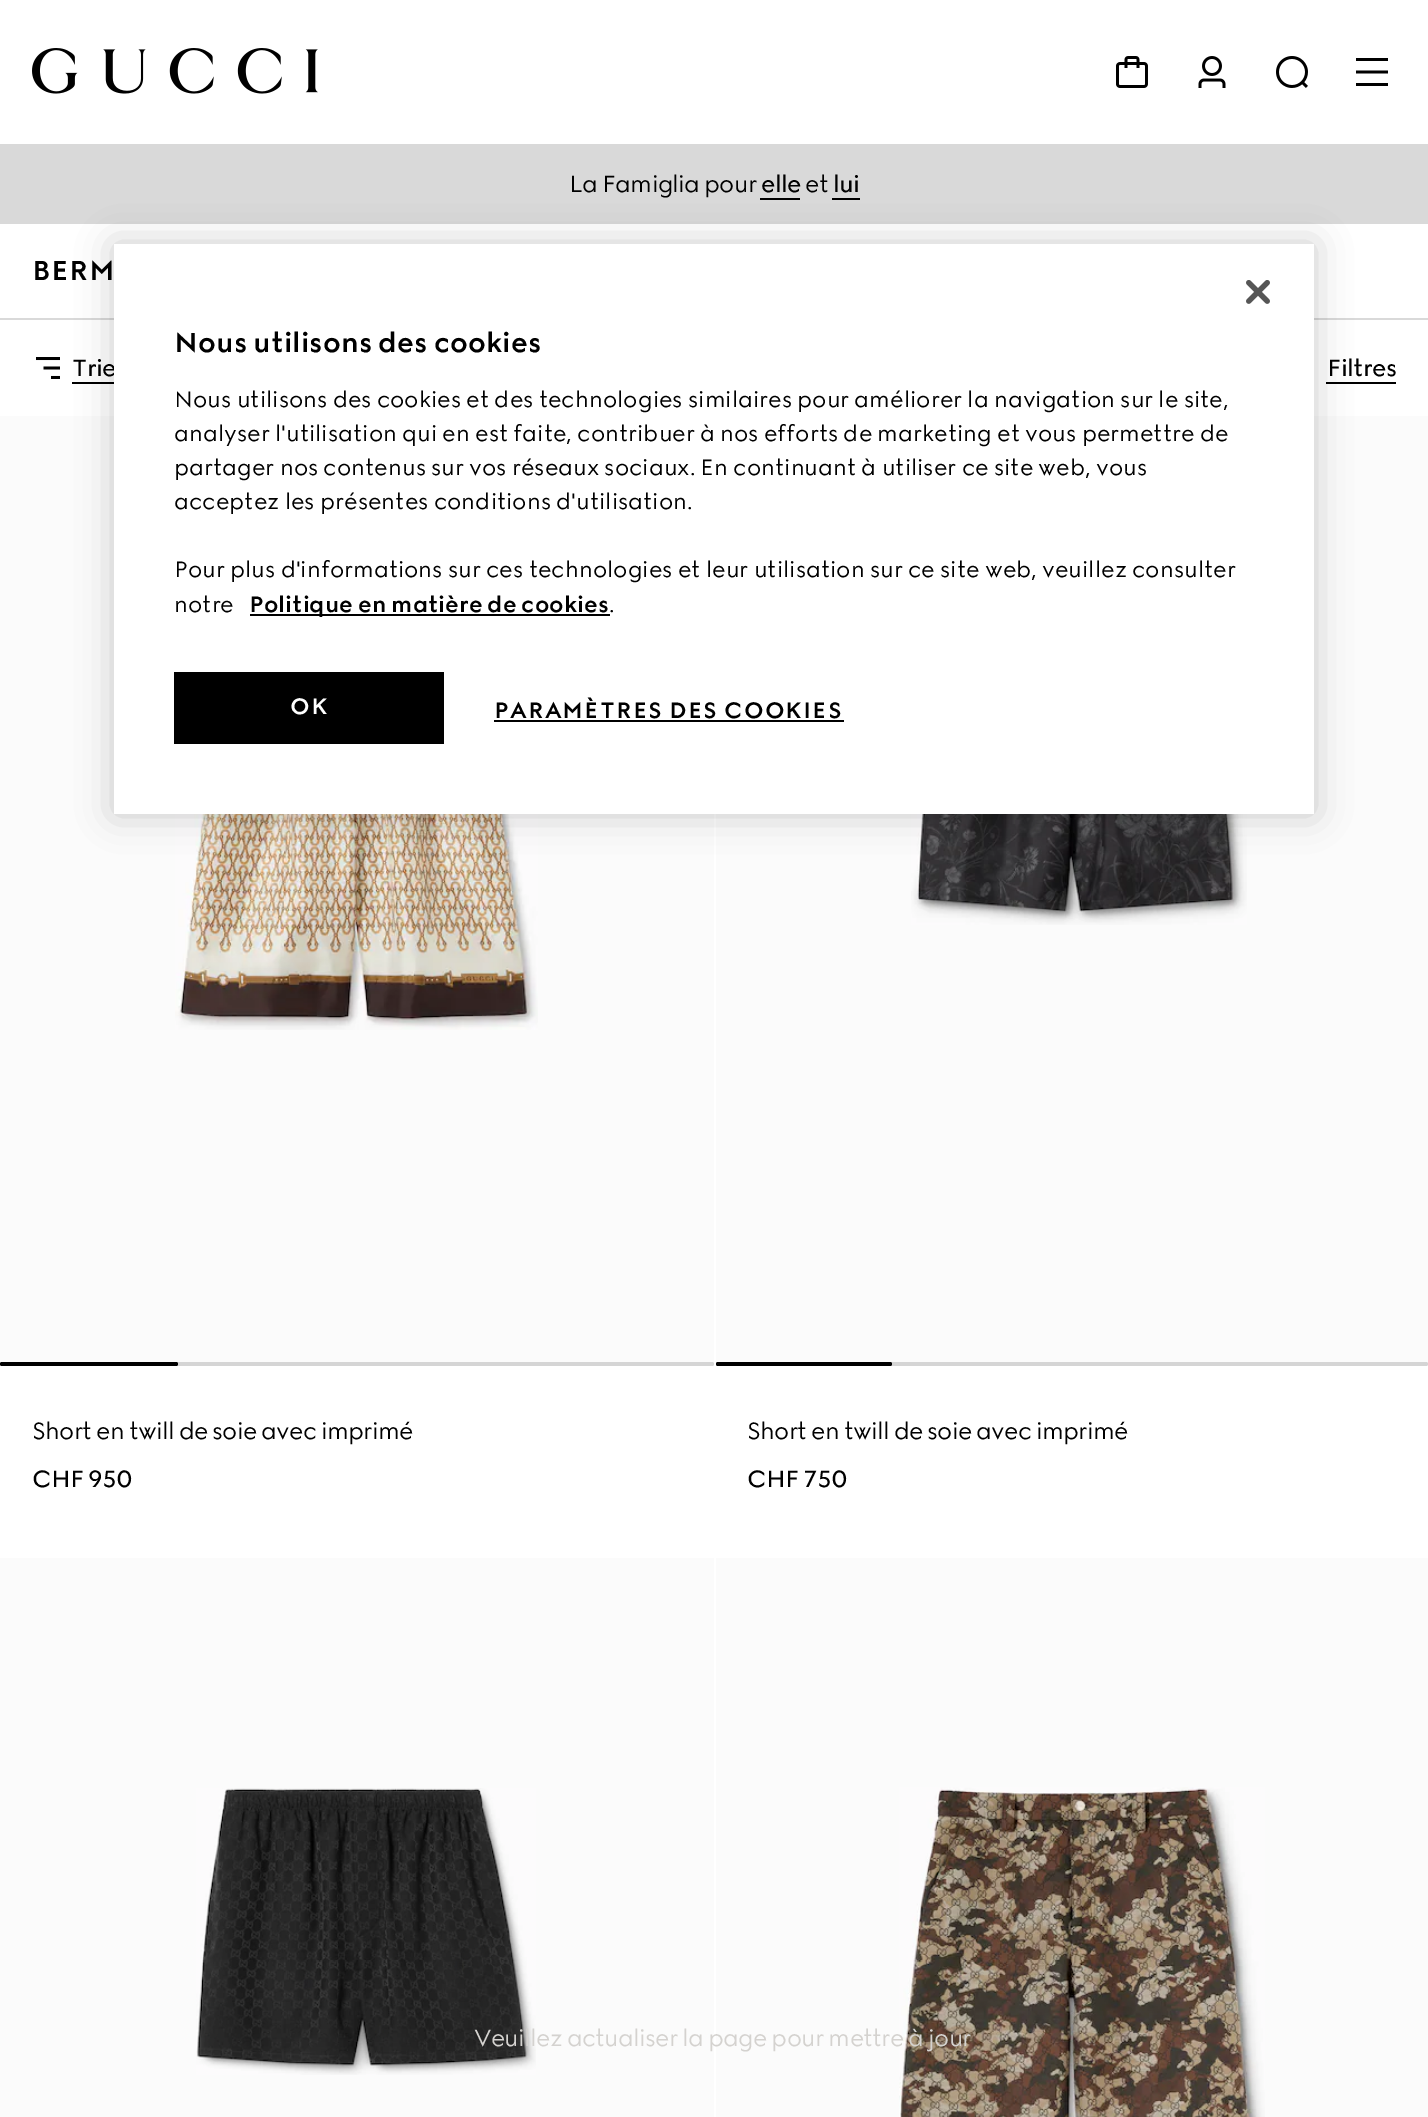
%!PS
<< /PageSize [1428 2117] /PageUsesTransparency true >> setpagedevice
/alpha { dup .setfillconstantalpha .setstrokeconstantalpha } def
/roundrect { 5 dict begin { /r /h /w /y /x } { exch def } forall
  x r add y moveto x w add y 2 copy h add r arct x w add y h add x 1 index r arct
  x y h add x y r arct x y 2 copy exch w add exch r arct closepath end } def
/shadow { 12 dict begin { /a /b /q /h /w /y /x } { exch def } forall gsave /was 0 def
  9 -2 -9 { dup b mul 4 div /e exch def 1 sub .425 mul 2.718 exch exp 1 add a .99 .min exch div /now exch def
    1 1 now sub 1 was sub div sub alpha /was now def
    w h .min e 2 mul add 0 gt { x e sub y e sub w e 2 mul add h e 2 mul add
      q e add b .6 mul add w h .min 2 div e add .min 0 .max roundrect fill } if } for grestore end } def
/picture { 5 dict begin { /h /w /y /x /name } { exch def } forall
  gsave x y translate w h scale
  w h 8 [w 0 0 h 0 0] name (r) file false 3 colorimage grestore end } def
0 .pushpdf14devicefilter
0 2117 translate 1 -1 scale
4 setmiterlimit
1 setgray
0 0 1428 2117 rectfill
(img1.rgb) 32 48 286 46 picture
(img2.rgb) 1116 56 32 32 picture
(img3.rgb) 1198 56 28 32 picture
(img4.rgb) 1276 56 32 32 picture
(img5.rgb) 1356 58 32 28 picture
0.851 setgray
0 144 1428 80 rectfill
/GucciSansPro-Regular [24 0 0 -24 0 0] selectfont
0 setgray
569 192 moveto -0.7 0 (La Famiglia pour) ashow
/GucciSansPro-Medium [24 0 0 -24 0 0] selectfont
761 192 moveto -0.7 0 (elle) ashow
760 198 40 2 rectfill
/GucciSansPro-Regular [24 0 0 -24 0 0] selectfont
805 192 moveto -0.7 0 (et) ashow
/GucciSansPro-Medium [24 0 0 -24 0 0] selectfont
833 192 moveto -0.7 0 (lui) ashow
832 198 28 2 rectfill
0.984 setgray
0 1558 714 559 rectfill
(img9.rgb) 196 1788 340 287 picture
716 1558 712 559 rectfill
(img10.rgb) 899 1787 366 330 picture
/GucciSansPro-Regular [24 0 0 -24 0 0] selectfont
0.831 0.824 0.812 setrgbcolor
474 2046 moveto -0.7 0 (Veuillez actualiser la page pour mettre à jour) ashow
/GucciSansPro-Bold [28 0 0 -28 0 0] selectfont
0 setgray
32 280 moveto 0.5 0 (BERM) ashow
0.851 setgray
0 318 1428 2 rectfill
(img6.rgb) 36 357 24 22 picture
/GucciSansPro-Medium [24 0 0 -24 0 0] selectfont
0 setgray
72 376 moveto -0.7 0 (Trie) ashow
72 382 42 2 rectfill
1327 376 moveto -0.7 0 (Filtres) ashow
1326 382 70 2 rectfill
0.984 setgray
0 416 714 950 rectfill
(img7.rgb) 175 814 363 216 picture
0.835 setgray
0 1362 714 4 2 roundrect fill
0 setgray
0 1362 178 4 2 roundrect fill
/GucciSansPro-Regular [24 0 0 -24 0 0] selectfont
32 1439 moveto -0.7 0 (Short en twill de soie avec imprimé) ashow
/GucciSansPro-Medium [24 0 0 -24 0 0] selectfont
32 1487 moveto -0.7 0 (CHF 950) ashow
0.984 setgray
716 416 712 950 rectfill
(img8.rgb) 911 814 336 111 picture
0.835 setgray
716 1362 712 4 2 roundrect fill
0 setgray
716 1362 176 4 2 roundrect fill
/GucciSansPro-Regular [24 0 0 -24 0 0] selectfont
747 1439 moveto -0.7 0 (Short en twill de soie avec imprimé) ashow
/GucciSansPro-Medium [24 0 0 -24 0 0] selectfont
747 1487 moveto -0.7 0 (CHF 750) ashow
114 244 1200 570 0 18 0.2 shadow
1 setgray
114 244 1200 570 rectfill
(img11.rgb) 1246 280 24 24 picture
/GucciSansPro-Bold [28 0 0 -28 0 0] selectfont
0 setgray
174 352 moveto (Nous utilisons des cookies) show
/GucciSansPro-Regular [22.75 0 0 -22.75 0 0] selectfont
174 407 moveto (Nous utilisons des cookies et des technologies similaires pour améliorer la navigation sur le site,) show
174 441 moveto (analyser l'utilisation qui en est faite, contribuer à nos efforts de marketing et vous permettre de) show
174 475 moveto (partager nos contenus sur vos réseaux sociaux. En continuant à utiliser ce site web, vous) show
174 509 moveto (acceptez les présentes conditions d'utilisation.) show
174 577 moveto (Pour plus d'informations sur ces technologies et leur utilisation sur ce site web, veuillez consulter) show
174 612 moveto (notre) show
250 614 360 2 rectfill
/GucciSansPro-Bold [22.75 0 0 -22.75 0 0] selectfont
249 612 moveto (Politique en matière de cookies) show
/GucciSansPro-Regular [22.75 0 0 -22.75 0 0] selectfont
609 612 moveto (.) show
174 672 270 72 rectfill
/GucciSansPro-Bold [22.75 0 0 -22.75 0 0] selectfont
1 setgray
290 714 moveto 1.1 0 (OK) ashow
0 setgray
494 718 moveto 1.1 0 (PARAMÈTRES DES COOKIES) ashow
494 720 350 2 rectfill
.poppdf14devicefilter showpage
